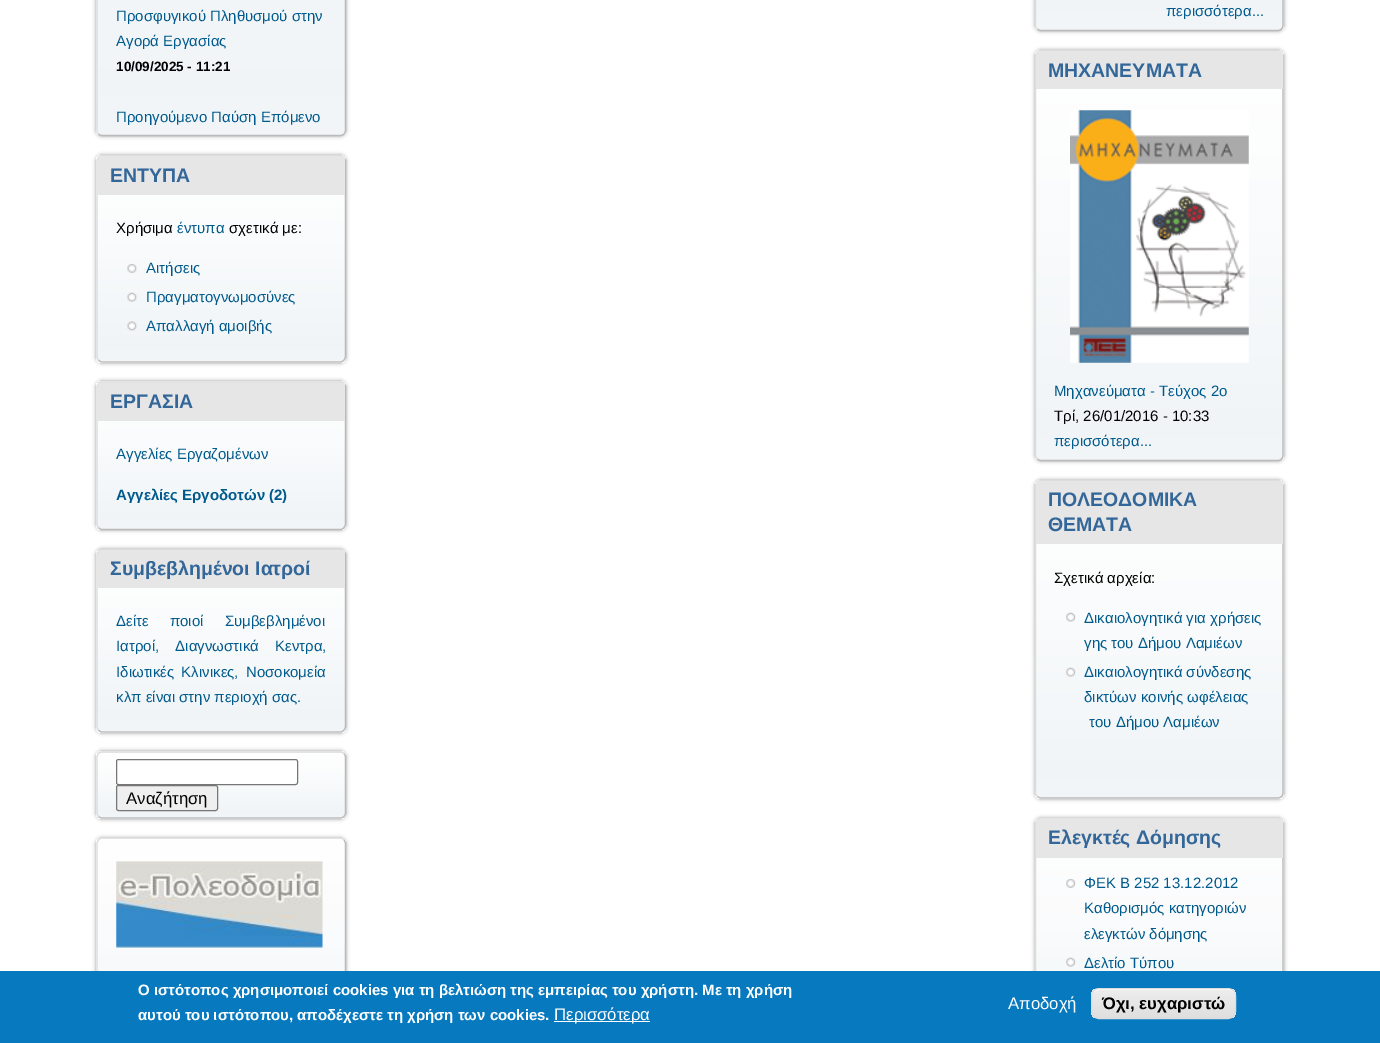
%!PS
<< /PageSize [1380 1043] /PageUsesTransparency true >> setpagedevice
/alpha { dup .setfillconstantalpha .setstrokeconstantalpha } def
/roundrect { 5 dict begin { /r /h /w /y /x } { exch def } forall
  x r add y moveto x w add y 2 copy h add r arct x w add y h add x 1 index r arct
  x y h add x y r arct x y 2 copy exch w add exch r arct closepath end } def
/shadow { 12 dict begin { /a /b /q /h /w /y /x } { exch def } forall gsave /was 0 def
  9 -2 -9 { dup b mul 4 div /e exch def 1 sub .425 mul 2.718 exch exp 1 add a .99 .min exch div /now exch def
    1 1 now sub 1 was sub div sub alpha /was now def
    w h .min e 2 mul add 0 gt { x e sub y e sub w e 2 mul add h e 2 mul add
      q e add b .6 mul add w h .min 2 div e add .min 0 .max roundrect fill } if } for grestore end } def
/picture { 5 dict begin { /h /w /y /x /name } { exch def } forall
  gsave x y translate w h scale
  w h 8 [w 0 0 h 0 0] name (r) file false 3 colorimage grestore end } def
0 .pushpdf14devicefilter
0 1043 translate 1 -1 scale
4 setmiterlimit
1 setgray
0 0 1380 1043 rectfill
0.6 setgray
96 -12 250 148 6 2 1 shadow
gsave
96 -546 250 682 6 roundrect clip newpath
gsave newpath 96 0 moveto 346 0 lineto 346 135 lineto 96 135 lineto closepath clip newpath
<< /ShadingType 2 /ColorSpace /DeviceRGB /Coords [98 -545 98 135] /Extend [true true] /Function << /FunctionType 3 /Domain [0 1] /Functions [<< /FunctionType 2 /Domain [0 1] /C0 [1 1 1] /C1 [0.98 0.984 0.988] /N 1 >> << /FunctionType 2 /Domain [0 1] /C0 [0.98 0.984 0.988] /C1 [0.949 0.965 0.973] /N 1 >> << /FunctionType 2 /Domain [0 1] /C0 [0.949 0.965 0.973] /C1 [0.941 0.957 0.969] /N 1 >> << /FunctionType 2 /Domain [0 1] /C0 [0.941 0.957 0.969] /C1 [0.945 0.961 0.973] /N 1 >> << /FunctionType 2 /Domain [0 1] /C0 [0.945 0.961 0.973] /C1 [0.945 0.961 0.973] /N 1 >>] /Bounds [0.42 0.8 0.94 0.95] /Encode [0 1 0 1 0 1 0 1 0 1] >> >> shfill grestore
grestore
0.733 setgray
1.2 setlinewidth
newpath 344 -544 moveto 345 -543 345.5 -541.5 345.5 -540 curveto 345.5 130 lineto 345.5 131.5 345 133 344 134 curveto 343 135 341.5 135.5 340 135.5 curveto 102.5 135.5 lineto 101 135.5 99.5 135 98.5 134 curveto stroke
0.867 setgray
newpath 98.5 134 moveto 97.5 133 97 131.5 97 130 curveto 97 -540 lineto 97 -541.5 97.5 -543 98.5 -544 curveto 99.5 -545 101 -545.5 102.5 -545.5 curveto 340 -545.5 lineto 341.5 -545.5 343 -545 344 -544 curveto stroke
/LiberationSans-Regular [15 0 0 -15 0 0] selectfont
0 0.353 0.549 setrgbcolor
116 21 moveto (Προσφυγικού Πληθυσμού στην) show
116 46 moveto (Αγορά Εργασίας) show
/LiberationSans-Bold [13.5 0 0 -13.5 0 0] selectfont
0 setgray
116 71 moveto (10/09/2025 - 11:21) show
/LiberationSans-Regular [15 0 0 -15 0 0] selectfont
0 0.353 0.549 setrgbcolor
116 122 moveto (Προηγούμενο Παύση Επόμενο) show
0.6 setgray
96 155 250 208 6 2 1 shadow
gsave
96 155 250 208 6 roundrect clip newpath
gsave newpath 96 155 moveto 346 155 lineto 346 156 lineto 96 156 lineto closepath clip newpath
<< /ShadingType 2 /ColorSpace /DeviceRGB /Coords [98 -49 98 156] /Extend [true true] /Function << /FunctionType 3 /Domain [0 1] /Functions [<< /FunctionType 2 /Domain [0 1] /C0 [1 1 1] /C1 [0.98 0.984 0.988] /N 1 >> << /FunctionType 2 /Domain [0 1] /C0 [0.98 0.984 0.988] /C1 [0.949 0.965 0.973] /N 1 >> << /FunctionType 2 /Domain [0 1] /C0 [0.949 0.965 0.973] /C1 [0.941 0.957 0.969] /N 1 >> << /FunctionType 2 /Domain [0 1] /C0 [0.941 0.957 0.969] /C1 [0.945 0.961 0.973] /N 1 >> << /FunctionType 2 /Domain [0 1] /C0 [0.945 0.961 0.973] /C1 [0.945 0.961 0.973] /N 1 >>] /Bounds [0.42 0.8 0.94 0.95] /Encode [0 1 0 1 0 1 0 1 0 1] >> >> shfill grestore
gsave newpath 96 156 moveto 346 156 lineto 346 361 lineto 96 361 lineto closepath clip newpath
<< /ShadingType 2 /ColorSpace /DeviceRGB /Coords [98 156 98 361] /Extend [true true] /Function << /FunctionType 3 /Domain [0 1] /Functions [<< /FunctionType 2 /Domain [0 1] /C0 [1 1 1] /C1 [0.98 0.984 0.988] /N 1 >> << /FunctionType 2 /Domain [0 1] /C0 [0.98 0.984 0.988] /C1 [0.949 0.965 0.973] /N 1 >> << /FunctionType 2 /Domain [0 1] /C0 [0.949 0.965 0.973] /C1 [0.941 0.957 0.969] /N 1 >> << /FunctionType 2 /Domain [0 1] /C0 [0.941 0.957 0.969] /C1 [0.945 0.961 0.973] /N 1 >> << /FunctionType 2 /Domain [0 1] /C0 [0.945 0.961 0.973] /C1 [0.945 0.961 0.973] /N 1 >>] /Bounds [0.42 0.8 0.94 0.95] /Encode [0 1 0 1 0 1 0 1 0 1] >> >> shfill grestore
gsave newpath 96 361 moveto 346 361 lineto 346 363 lineto 96 363 lineto closepath clip newpath
<< /ShadingType 2 /ColorSpace /DeviceRGB /Coords [98 361 98 566] /Extend [true true] /Function << /FunctionType 3 /Domain [0 1] /Functions [<< /FunctionType 2 /Domain [0 1] /C0 [1 1 1] /C1 [0.98 0.984 0.988] /N 1 >> << /FunctionType 2 /Domain [0 1] /C0 [0.98 0.984 0.988] /C1 [0.949 0.965 0.973] /N 1 >> << /FunctionType 2 /Domain [0 1] /C0 [0.949 0.965 0.973] /C1 [0.941 0.957 0.969] /N 1 >> << /FunctionType 2 /Domain [0 1] /C0 [0.941 0.957 0.969] /C1 [0.945 0.961 0.973] /N 1 >> << /FunctionType 2 /Domain [0 1] /C0 [0.945 0.961 0.973] /C1 [0.945 0.961 0.973] /N 1 >>] /Bounds [0.42 0.8 0.94 0.95] /Encode [0 1 0 1 0 1 0 1 0 1] >> >> shfill grestore
grestore
0.733 setgray
newpath 344 157.5 moveto 345 158.5 345.5 160 345.5 161 curveto 345.5 356 lineto 345.5 357.5 345 359 344 360 curveto 343 361.5 341.5 362 340 362 curveto 102.5 362 lineto 101 362 99.5 361.5 98.5 360 curveto stroke
0.867 setgray
newpath 98.5 360 moveto 97.5 359 97 357.5 97 356 curveto 97 161 lineto 97 160 97.5 158.5 98.5 157.5 curveto 99.5 156 101 155.5 102.5 155.5 curveto 340 155.5 lineto 341.5 155.5 343 156 344 157.5 curveto stroke
0.902 setgray
98 156 247 39 rectfill
/LiberationSans-Bold [19.5 0 0 -19.5 0 0] selectfont
0.2 0.4 0.6 setrgbcolor
110 182 moveto (ΕΝΤΥΠΑ) show
/LiberationSans-Regular [15 0 0 -15 0 0] selectfont
0 setgray
116 233 moveto (Χρήσιμα) show
0 0.353 0.549 setrgbcolor
177 233 moveto (έντυπα) show
0 setgray
229 233 moveto (σχετικά με:) show
(img1.rgb) 127 264 10 9 picture
0 0.353 0.549 setrgbcolor
146 273 moveto (Αιτήσεις) show
(img2.rgb) 127 292 10 10 picture
146 302 moveto (Πραγματογνωμοσύνες) show
(img3.rgb) 127 321 10 10 picture
146 331 moveto (Απαλλαγή αμοιβής) show
0.6 setgray
96 381 250 149 6 2 1 shadow
gsave
96 381 250 149 6 roundrect clip newpath
gsave newpath 96 381 moveto 346 381 lineto 346 383 lineto 96 383 lineto closepath clip newpath
<< /ShadingType 2 /ColorSpace /DeviceRGB /Coords [98 236 98 383] /Extend [true true] /Function << /FunctionType 3 /Domain [0 1] /Functions [<< /FunctionType 2 /Domain [0 1] /C0 [1 1 1] /C1 [0.98 0.984 0.988] /N 1 >> << /FunctionType 2 /Domain [0 1] /C0 [0.98 0.984 0.988] /C1 [0.949 0.965 0.973] /N 1 >> << /FunctionType 2 /Domain [0 1] /C0 [0.949 0.965 0.973] /C1 [0.941 0.957 0.969] /N 1 >> << /FunctionType 2 /Domain [0 1] /C0 [0.941 0.957 0.969] /C1 [0.945 0.961 0.973] /N 1 >> << /FunctionType 2 /Domain [0 1] /C0 [0.945 0.961 0.973] /C1 [0.945 0.961 0.973] /N 1 >>] /Bounds [0.42 0.8 0.94 0.95] /Encode [0 1 0 1 0 1 0 1 0 1] >> >> shfill grestore
gsave newpath 96 383 moveto 346 383 lineto 346 529 lineto 96 529 lineto closepath clip newpath
<< /ShadingType 2 /ColorSpace /DeviceRGB /Coords [98 383 98 529] /Extend [true true] /Function << /FunctionType 3 /Domain [0 1] /Functions [<< /FunctionType 2 /Domain [0 1] /C0 [1 1 1] /C1 [0.98 0.984 0.988] /N 1 >> << /FunctionType 2 /Domain [0 1] /C0 [0.98 0.984 0.988] /C1 [0.949 0.965 0.973] /N 1 >> << /FunctionType 2 /Domain [0 1] /C0 [0.949 0.965 0.973] /C1 [0.941 0.957 0.969] /N 1 >> << /FunctionType 2 /Domain [0 1] /C0 [0.941 0.957 0.969] /C1 [0.945 0.961 0.973] /N 1 >> << /FunctionType 2 /Domain [0 1] /C0 [0.945 0.961 0.973] /C1 [0.945 0.961 0.973] /N 1 >>] /Bounds [0.42 0.8 0.94 0.95] /Encode [0 1 0 1 0 1 0 1 0 1] >> >> shfill grestore
gsave newpath 96 529 moveto 346 529 lineto 346 530 lineto 96 530 lineto closepath clip newpath
<< /ShadingType 2 /ColorSpace /DeviceRGB /Coords [98 529 98 675] /Extend [true true] /Function << /FunctionType 3 /Domain [0 1] /Functions [<< /FunctionType 2 /Domain [0 1] /C0 [1 1 1] /C1 [0.98 0.984 0.988] /N 1 >> << /FunctionType 2 /Domain [0 1] /C0 [0.98 0.984 0.988] /C1 [0.949 0.965 0.973] /N 1 >> << /FunctionType 2 /Domain [0 1] /C0 [0.949 0.965 0.973] /C1 [0.941 0.957 0.969] /N 1 >> << /FunctionType 2 /Domain [0 1] /C0 [0.941 0.957 0.969] /C1 [0.945 0.961 0.973] /N 1 >> << /FunctionType 2 /Domain [0 1] /C0 [0.945 0.961 0.973] /C1 [0.945 0.961 0.973] /N 1 >>] /Bounds [0.42 0.8 0.94 0.95] /Encode [0 1 0 1 0 1 0 1 0 1] >> >> shfill grestore
grestore
0.733 setgray
newpath 344 383.5 moveto 345 384.5 345.5 386 345.5 387.5 curveto 345.5 524 lineto 345.5 525 345 526.5 344 527.5 curveto 343 529 341.5 529.5 340 529.5 curveto 102.5 529.5 lineto 101 529.5 99.5 529 98.5 527.5 curveto stroke
0.867 setgray
newpath 98.5 527.5 moveto 97.5 526.5 97 525 97 524 curveto 97 387.5 lineto 97 386 97.5 384.5 98.5 383.5 curveto 99.5 382.5 101 382 102.5 382 curveto 340 382 lineto 341.5 382 343 382.5 344 383.5 curveto stroke
0.902 setgray
98 383 247 38 rectfill
/LiberationSans-Bold [19.5 0 0 -19.5 0 0] selectfont
0.2 0.4 0.6 setrgbcolor
110 408 moveto (ΕΡΓΑΣΙΑ) show
/LiberationSans-Regular [15 0 0 -15 0 0] selectfont
0 0.353 0.549 setrgbcolor
116 459 moveto (Αγγελίες Εργαζομένων) show
/LiberationSans-Bold [15 0 0 -15 0 0] selectfont
116 500 moveto (Αγγελίες Εργοδοτών \(2\)) show
0.6 setgray
96 549 250 184 6 2 1 shadow
gsave
96 549 250 184 6 roundrect clip newpath
gsave newpath 96 550 moveto 346 550 lineto 346 731 lineto 96 731 lineto closepath clip newpath
<< /ShadingType 2 /ColorSpace /DeviceRGB /Coords [98 550 98 731] /Extend [true true] /Function << /FunctionType 3 /Domain [0 1] /Functions [<< /FunctionType 2 /Domain [0 1] /C0 [1 1 1] /C1 [0.98 0.984 0.988] /N 1 >> << /FunctionType 2 /Domain [0 1] /C0 [0.98 0.984 0.988] /C1 [0.949 0.965 0.973] /N 1 >> << /FunctionType 2 /Domain [0 1] /C0 [0.949 0.965 0.973] /C1 [0.941 0.957 0.969] /N 1 >> << /FunctionType 2 /Domain [0 1] /C0 [0.941 0.957 0.969] /C1 [0.945 0.961 0.973] /N 1 >> << /FunctionType 2 /Domain [0 1] /C0 [0.945 0.961 0.973] /C1 [0.945 0.961 0.973] /N 1 >>] /Bounds [0.42 0.8 0.94 0.95] /Encode [0 1 0 1 0 1 0 1 0 1] >> >> shfill grestore
gsave newpath 96 731 moveto 346 731 lineto 346 733 lineto 96 733 lineto closepath clip newpath
<< /ShadingType 2 /ColorSpace /DeviceRGB /Coords [98 731 98 913] /Extend [true true] /Function << /FunctionType 3 /Domain [0 1] /Functions [<< /FunctionType 2 /Domain [0 1] /C0 [1 1 1] /C1 [0.98 0.984 0.988] /N 1 >> << /FunctionType 2 /Domain [0 1] /C0 [0.98 0.984 0.988] /C1 [0.949 0.965 0.973] /N 1 >> << /FunctionType 2 /Domain [0 1] /C0 [0.949 0.965 0.973] /C1 [0.941 0.957 0.969] /N 1 >> << /FunctionType 2 /Domain [0 1] /C0 [0.941 0.957 0.969] /C1 [0.945 0.961 0.973] /N 1 >> << /FunctionType 2 /Domain [0 1] /C0 [0.945 0.961 0.973] /C1 [0.945 0.961 0.973] /N 1 >>] /Bounds [0.42 0.8 0.94 0.95] /Encode [0 1 0 1 0 1 0 1 0 1] >> >> shfill grestore
grestore
0.733 setgray
newpath 344 551 moveto 345 552 345.5 553.5 345.5 555 curveto 345.5 726 lineto 345.5 727.5 345 729 344 730 curveto 343 731.5 341.5 732 340 732 curveto 102.5 732 lineto 101 732 99.5 731.5 98.5 730 curveto stroke
0.867 setgray
newpath 98.5 730 moveto 97.5 729 97 727.5 97 726 curveto 97 555 lineto 97 553.5 97.5 552 98.5 551 curveto 99.5 550 101 549.5 102.5 549.5 curveto 340 549.5 lineto 341.5 549.5 343 550 344 551 curveto stroke
0.902 setgray
98 550 247 38 rectfill
/LiberationSans-Bold [19.5 0 0 -19.5 0 0] selectfont
0.2 0.4 0.6 setrgbcolor
110 575 moveto (Συμβεβλημένοι Ιατροί) show
/LiberationSans-Regular [15 0 0 -15 0 0] selectfont
0 0.353 0.549 setrgbcolor
116 626 moveto 17 0 32 (Δείτε ποιοί Συμβεβλημένοι) widthshow
116 651 moveto 12 0 32 (Ιατροί, Διαγνωστικά Κεντρα,) widthshow
116 677 moveto 3 0 32 (Ιδιωτικές Κλινικες, Νοσοκομεία) widthshow
116 702 moveto (κλπ είναι στην περιοχή σας.) show
0.6 setgray
96 751 250 68 6 2 1 shadow
gsave
96 751 250 68 6 roundrect clip newpath
gsave newpath 96 751 moveto 346 751 lineto 346 753 lineto 96 753 lineto closepath clip newpath
<< /ShadingType 2 /ColorSpace /DeviceRGB /Coords [98 688 98 753] /Extend [true true] /Function << /FunctionType 3 /Domain [0 1] /Functions [<< /FunctionType 2 /Domain [0 1] /C0 [1 1 1] /C1 [0.98 0.984 0.988] /N 1 >> << /FunctionType 2 /Domain [0 1] /C0 [0.98 0.984 0.988] /C1 [0.949 0.965 0.973] /N 1 >> << /FunctionType 2 /Domain [0 1] /C0 [0.949 0.965 0.973] /C1 [0.941 0.957 0.969] /N 1 >> << /FunctionType 2 /Domain [0 1] /C0 [0.941 0.957 0.969] /C1 [0.945 0.961 0.973] /N 1 >> << /FunctionType 2 /Domain [0 1] /C0 [0.945 0.961 0.973] /C1 [0.945 0.961 0.973] /N 1 >>] /Bounds [0.42 0.8 0.94 0.95] /Encode [0 1 0 1 0 1 0 1 0 1] >> >> shfill grestore
gsave newpath 96 753 moveto 346 753 lineto 346 818 lineto 96 818 lineto closepath clip newpath
<< /ShadingType 2 /ColorSpace /DeviceRGB /Coords [98 753 98 818] /Extend [true true] /Function << /FunctionType 3 /Domain [0 1] /Functions [<< /FunctionType 2 /Domain [0 1] /C0 [1 1 1] /C1 [0.98 0.984 0.988] /N 1 >> << /FunctionType 2 /Domain [0 1] /C0 [0.98 0.984 0.988] /C1 [0.949 0.965 0.973] /N 1 >> << /FunctionType 2 /Domain [0 1] /C0 [0.949 0.965 0.973] /C1 [0.941 0.957 0.969] /N 1 >> << /FunctionType 2 /Domain [0 1] /C0 [0.941 0.957 0.969] /C1 [0.945 0.961 0.973] /N 1 >> << /FunctionType 2 /Domain [0 1] /C0 [0.945 0.961 0.973] /C1 [0.945 0.961 0.973] /N 1 >>] /Bounds [0.42 0.8 0.94 0.95] /Encode [0 1 0 1 0 1 0 1 0 1] >> >> shfill grestore
gsave newpath 96 818 moveto 346 818 lineto 346 819 lineto 96 819 lineto closepath clip newpath
<< /ShadingType 2 /ColorSpace /DeviceRGB /Coords [98 818 98 883] /Extend [true true] /Function << /FunctionType 3 /Domain [0 1] /Functions [<< /FunctionType 2 /Domain [0 1] /C0 [1 1 1] /C1 [0.98 0.984 0.988] /N 1 >> << /FunctionType 2 /Domain [0 1] /C0 [0.98 0.984 0.988] /C1 [0.949 0.965 0.973] /N 1 >> << /FunctionType 2 /Domain [0 1] /C0 [0.949 0.965 0.973] /C1 [0.941 0.957 0.969] /N 1 >> << /FunctionType 2 /Domain [0 1] /C0 [0.941 0.957 0.969] /C1 [0.945 0.961 0.973] /N 1 >> << /FunctionType 2 /Domain [0 1] /C0 [0.945 0.961 0.973] /C1 [0.945 0.961 0.973] /N 1 >>] /Bounds [0.42 0.8 0.94 0.95] /Encode [0 1 0 1 0 1 0 1 0 1] >> >> shfill grestore
grestore
0.733 setgray
newpath 344 753.5 moveto 345 754.5 345.5 756 345.5 757.5 curveto 345.5 812.5 lineto 345.5 814 345 815.5 344 816.5 curveto 343 817.5 341.5 818 340 818 curveto 102.5 818 lineto 101 818 99.5 817.5 98.5 816.5 curveto stroke
0.867 setgray
newpath 98.5 816.5 moveto 97.5 815.5 97 814 97 812.5 curveto 97 757.5 lineto 97 756 97.5 754.5 98.5 753.5 curveto 99.5 752.5 101 752 102.5 752 curveto 340 752 lineto 341.5 752 343 752.5 344 753.5 curveto stroke
1 setgray
116.5 759.5 181 25 2 roundrect gsave fill grestore
0.463 setgray
1 setlinewidth
stroke
0.937 setgray
116.5 785.5 101 25 2 roundrect gsave fill grestore
0.463 setgray
stroke
/LiberationSans-Regular [16.75 0 0 -16.75 0 0] selectfont
0 setgray
126 804 moveto (Αναζήτηση) show
0.6 setgray
96 838 250 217 6 2 1 shadow
gsave
96 838 250 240 6 roundrect clip newpath
gsave newpath 96 838 moveto 346 838 lineto 346 839 lineto 96 839 lineto closepath clip newpath
<< /ShadingType 2 /ColorSpace /DeviceRGB /Coords [98 601 98 839] /Extend [true true] /Function << /FunctionType 3 /Domain [0 1] /Functions [<< /FunctionType 2 /Domain [0 1] /C0 [1 1 1] /C1 [0.98 0.984 0.988] /N 1 >> << /FunctionType 2 /Domain [0 1] /C0 [0.98 0.984 0.988] /C1 [0.949 0.965 0.973] /N 1 >> << /FunctionType 2 /Domain [0 1] /C0 [0.949 0.965 0.973] /C1 [0.941 0.957 0.969] /N 1 >> << /FunctionType 2 /Domain [0 1] /C0 [0.941 0.957 0.969] /C1 [0.945 0.961 0.973] /N 1 >> << /FunctionType 2 /Domain [0 1] /C0 [0.945 0.961 0.973] /C1 [0.945 0.961 0.973] /N 1 >>] /Bounds [0.42 0.8 0.94 0.95] /Encode [0 1 0 1 0 1 0 1 0 1] >> >> shfill grestore
gsave newpath 96 839 moveto 346 839 lineto 346 971 lineto 96 971 lineto closepath clip newpath
<< /ShadingType 2 /ColorSpace /DeviceRGB /Coords [98 839 98 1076] /Extend [true true] /Function << /FunctionType 3 /Domain [0 1] /Functions [<< /FunctionType 2 /Domain [0 1] /C0 [1 1 1] /C1 [0.98 0.984 0.988] /N 1 >> << /FunctionType 2 /Domain [0 1] /C0 [0.98 0.984 0.988] /C1 [0.949 0.965 0.973] /N 1 >> << /FunctionType 2 /Domain [0 1] /C0 [0.949 0.965 0.973] /C1 [0.941 0.957 0.969] /N 1 >> << /FunctionType 2 /Domain [0 1] /C0 [0.941 0.957 0.969] /C1 [0.945 0.961 0.973] /N 1 >> << /FunctionType 2 /Domain [0 1] /C0 [0.945 0.961 0.973] /C1 [0.945 0.961 0.973] /N 1 >>] /Bounds [0.42 0.8 0.94 0.95] /Encode [0 1 0 1 0 1 0 1 0 1] >> >> shfill grestore
grestore
0.733 setgray
1.2 setlinewidth
newpath 344 840 moveto 345 841 345.5 842.5 345.5 844 curveto 345.5 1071 lineto 345.5 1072.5 345 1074 344 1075 curveto 343 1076.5 341.5 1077 340 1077 curveto 102.5 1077 lineto 101 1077 99.5 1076.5 98.5 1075 curveto stroke
0.867 setgray
newpath 98.5 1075 moveto 97.5 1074 97 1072.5 97 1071 curveto 97 844 lineto 97 842.5 97.5 841 98.5 840 curveto 99.5 838.5 101 838 102.5 838 curveto 340 838 lineto 341.5 838 343 838.5 344 840 curveto stroke
(img4.rgb) 116 860 207 88 picture
0.6 setgray
1035 -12 249 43 6 2 1 shadow
gsave
1035 -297 249 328 6 roundrect clip newpath
gsave newpath 1035 0 moveto 1284 0 lineto 1284 30 lineto 1035 30 lineto closepath clip newpath
<< /ShadingType 2 /ColorSpace /DeviceRGB /Coords [1036 -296 1036 30] /Extend [true true] /Function << /FunctionType 3 /Domain [0 1] /Functions [<< /FunctionType 2 /Domain [0 1] /C0 [1 1 1] /C1 [0.98 0.984 0.988] /N 1 >> << /FunctionType 2 /Domain [0 1] /C0 [0.98 0.984 0.988] /C1 [0.949 0.965 0.973] /N 1 >> << /FunctionType 2 /Domain [0 1] /C0 [0.949 0.965 0.973] /C1 [0.941 0.957 0.969] /N 1 >> << /FunctionType 2 /Domain [0 1] /C0 [0.941 0.957 0.969] /C1 [0.945 0.961 0.973] /N 1 >> << /FunctionType 2 /Domain [0 1] /C0 [0.945 0.961 0.973] /C1 [0.945 0.961 0.973] /N 1 >>] /Bounds [0.42 0.8 0.94 0.95] /Encode [0 1 0 1 0 1 0 1 0 1] >> >> shfill grestore
grestore
0.733 setgray
newpath 1281.5 -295 moveto 1282.5 -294 1283 -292.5 1283 -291 curveto 1283 25 lineto 1283 26.5 1282.5 28 1281.5 29 curveto 1280.5 30 1279 30.5 1277.5 30.5 curveto 1041 30.5 lineto 1040 30.5 1038.5 30 1037.5 29 curveto stroke
0.867 setgray
newpath 1037.5 29 moveto 1036 28 1035.5 26.5 1035.5 25 curveto 1035.5 -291 lineto 1035.5 -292.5 1036 -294 1037.5 -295 curveto 1038.5 -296.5 1040 -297 1041 -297 curveto 1277.5 -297 lineto 1279 -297 1280.5 -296.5 1281.5 -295 curveto stroke
/LiberationSans-Regular [15 0 0 -15 0 0] selectfont
0 0.353 0.549 setrgbcolor
1166 16 moveto (περισσότερα...) show
0.6 setgray
1035 50 249 411 6 2 1 shadow
gsave
1035 50 249 411 6 roundrect clip newpath
gsave newpath 1035 50 moveto 1284 50 lineto 1284 51 lineto 1035 51 lineto closepath clip newpath
<< /ShadingType 2 /ColorSpace /DeviceRGB /Coords [1036 -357 1036 51] /Extend [true true] /Function << /FunctionType 3 /Domain [0 1] /Functions [<< /FunctionType 2 /Domain [0 1] /C0 [1 1 1] /C1 [0.98 0.984 0.988] /N 1 >> << /FunctionType 2 /Domain [0 1] /C0 [0.98 0.984 0.988] /C1 [0.949 0.965 0.973] /N 1 >> << /FunctionType 2 /Domain [0 1] /C0 [0.949 0.965 0.973] /C1 [0.941 0.957 0.969] /N 1 >> << /FunctionType 2 /Domain [0 1] /C0 [0.941 0.957 0.969] /C1 [0.945 0.961 0.973] /N 1 >> << /FunctionType 2 /Domain [0 1] /C0 [0.945 0.961 0.973] /C1 [0.945 0.961 0.973] /N 1 >>] /Bounds [0.42 0.8 0.94 0.95] /Encode [0 1 0 1 0 1 0 1 0 1] >> >> shfill grestore
gsave newpath 1035 52 moveto 1284 52 lineto 1284 460 lineto 1035 460 lineto closepath clip newpath
<< /ShadingType 2 /ColorSpace /DeviceRGB /Coords [1036 51 1036 460] /Extend [true true] /Function << /FunctionType 3 /Domain [0 1] /Functions [<< /FunctionType 2 /Domain [0 1] /C0 [1 1 1] /C1 [0.98 0.984 0.988] /N 1 >> << /FunctionType 2 /Domain [0 1] /C0 [0.98 0.984 0.988] /C1 [0.949 0.965 0.973] /N 1 >> << /FunctionType 2 /Domain [0 1] /C0 [0.949 0.965 0.973] /C1 [0.941 0.957 0.969] /N 1 >> << /FunctionType 2 /Domain [0 1] /C0 [0.941 0.957 0.969] /C1 [0.945 0.961 0.973] /N 1 >> << /FunctionType 2 /Domain [0 1] /C0 [0.945 0.961 0.973] /C1 [0.945 0.961 0.973] /N 1 >>] /Bounds [0.42 0.8 0.94 0.95] /Encode [0 1 0 1 0 1 0 1 0 1] >> >> shfill grestore
grestore
0.733 setgray
newpath 1281.5 52.5 moveto 1282.5 53.5 1283 55 1283 56 curveto 1283 455 lineto 1283 456.5 1282.5 458 1281.5 459 curveto 1280.5 460 1279 460.5 1277.5 460.5 curveto 1041 460.5 lineto 1040 460.5 1038.5 460 1037.5 459 curveto stroke
0.867 setgray
newpath 1037.5 459 moveto 1036 458 1035.5 456.5 1035.5 455 curveto 1035.5 56 lineto 1035.5 55 1036 53.5 1037.5 52.5 curveto 1038.5 51 1040 50.5 1041 50.5 curveto 1277.5 50.5 lineto 1279 50.5 1280.5 51 1281.5 52.5 curveto stroke
0.902 setgray
1036 51 247 38 rectfill
/LiberationSans-Bold [19.5 0 0 -19.5 0 0] selectfont
0.2 0.4 0.6 setrgbcolor
1048 77 moveto (ΜΗΧΑΝΕΥΜΑΤΑ) show
(img5.rgb) 1070 110 179 253 picture
/LiberationSans-Regular [15 0 0 -15 0 0] selectfont
0 0.353 0.549 setrgbcolor
1054 396 moveto (Μηχανεύματα - Τεύχος 2ο) show
0 setgray
1054 421 moveto (Τρί, 26/01/2016 - 10:33) show
0 0.353 0.549 setrgbcolor
1054 446 moveto (περισσότερα...) show
0.6 setgray
1035 480 249 319 6 2 1 shadow
gsave
1035 480 249 319 6 roundrect clip newpath
gsave newpath 1035 480 moveto 1284 480 lineto 1284 481 lineto 1035 481 lineto closepath clip newpath
<< /ShadingType 2 /ColorSpace /DeviceRGB /Coords [1036 165 1036 481] /Extend [true true] /Function << /FunctionType 3 /Domain [0 1] /Functions [<< /FunctionType 2 /Domain [0 1] /C0 [1 1 1] /C1 [0.98 0.984 0.988] /N 1 >> << /FunctionType 2 /Domain [0 1] /C0 [0.98 0.984 0.988] /C1 [0.949 0.965 0.973] /N 1 >> << /FunctionType 2 /Domain [0 1] /C0 [0.949 0.965 0.973] /C1 [0.941 0.957 0.969] /N 1 >> << /FunctionType 2 /Domain [0 1] /C0 [0.941 0.957 0.969] /C1 [0.945 0.961 0.973] /N 1 >> << /FunctionType 2 /Domain [0 1] /C0 [0.945 0.961 0.973] /C1 [0.945 0.961 0.973] /N 1 >>] /Bounds [0.42 0.8 0.94 0.95] /Encode [0 1 0 1 0 1 0 1 0 1] >> >> shfill grestore
gsave newpath 1035 482 moveto 1284 482 lineto 1284 798 lineto 1035 798 lineto closepath clip newpath
<< /ShadingType 2 /ColorSpace /DeviceRGB /Coords [1036 481 1036 798] /Extend [true true] /Function << /FunctionType 3 /Domain [0 1] /Functions [<< /FunctionType 2 /Domain [0 1] /C0 [1 1 1] /C1 [0.98 0.984 0.988] /N 1 >> << /FunctionType 2 /Domain [0 1] /C0 [0.98 0.984 0.988] /C1 [0.949 0.965 0.973] /N 1 >> << /FunctionType 2 /Domain [0 1] /C0 [0.949 0.965 0.973] /C1 [0.941 0.957 0.969] /N 1 >> << /FunctionType 2 /Domain [0 1] /C0 [0.941 0.957 0.969] /C1 [0.945 0.961 0.973] /N 1 >> << /FunctionType 2 /Domain [0 1] /C0 [0.945 0.961 0.973] /C1 [0.945 0.961 0.973] /N 1 >>] /Bounds [0.42 0.8 0.94 0.95] /Encode [0 1 0 1 0 1 0 1 0 1] >> >> shfill grestore
gsave newpath 1035 798 moveto 1284 798 lineto 1284 799 lineto 1035 799 lineto closepath clip newpath
<< /ShadingType 2 /ColorSpace /DeviceRGB /Coords [1036 798 1036 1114] /Extend [true true] /Function << /FunctionType 3 /Domain [0 1] /Functions [<< /FunctionType 2 /Domain [0 1] /C0 [1 1 1] /C1 [0.98 0.984 0.988] /N 1 >> << /FunctionType 2 /Domain [0 1] /C0 [0.98 0.984 0.988] /C1 [0.949 0.965 0.973] /N 1 >> << /FunctionType 2 /Domain [0 1] /C0 [0.949 0.965 0.973] /C1 [0.941 0.957 0.969] /N 1 >> << /FunctionType 2 /Domain [0 1] /C0 [0.941 0.957 0.969] /C1 [0.945 0.961 0.973] /N 1 >> << /FunctionType 2 /Domain [0 1] /C0 [0.945 0.961 0.973] /C1 [0.945 0.961 0.973] /N 1 >>] /Bounds [0.42 0.8 0.94 0.95] /Encode [0 1 0 1 0 1 0 1 0 1] >> >> shfill grestore
grestore
0.733 setgray
newpath 1281.5 482.5 moveto 1282.5 483.5 1283 485 1283 486 curveto 1283 792.5 lineto 1283 794 1282.5 795.5 1281.5 796.5 curveto 1280.5 797.5 1279 798 1277.5 798 curveto 1041 798 lineto 1040 798 1038.5 797.5 1037.5 796.5 curveto stroke
0.867 setgray
newpath 1037.5 796.5 moveto 1036 795.5 1035.5 794 1035.5 792.5 curveto 1035.5 486 lineto 1035.5 485 1036 483.5 1037.5 482.5 curveto 1038.5 481 1040 480.5 1041 480.5 curveto 1277.5 480.5 lineto 1279 480.5 1280.5 481 1281.5 482.5 curveto stroke
0.902 setgray
1036 481 247 63 rectfill
/LiberationSans-Bold [19.5 0 0 -19.5 0 0] selectfont
0.2 0.4 0.6 setrgbcolor
1048 506 moveto (ΠΟΛΕΟΔΟΜΙΚΑ) show
1048 531 moveto (ΘΕΜΑΤΑ) show
/LiberationSans-Regular [15 0 0 -15 0 0] selectfont
0 setgray
1054 583 moveto (Σχετικά αρχεία:) show
(img6.rgb) 1066 612 10 10 picture
0 0.353 0.549 setrgbcolor
1084 623 moveto (Δικαιολογητικά για χρήσεις) show
1084 648 moveto (γης του Δήμου Λαμιέων) show
(img7.rgb) 1066 667 10 10 picture
1084 677 moveto (Δικαιολογητικά σύνδεσης) show
1084 702 moveto (δικτύων κοινής ωφέλειας) show
1089 727 moveto (του Δήμου Λαμιέων) show
0.6 setgray
1035 818 249 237 6 2 1 shadow
gsave
1035 818 249 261 6 roundrect clip newpath
gsave newpath 1035 818 moveto 1284 818 lineto 1284 819 lineto 1035 819 lineto closepath clip newpath
<< /ShadingType 2 /ColorSpace /DeviceRGB /Coords [1036 560 1036 819] /Extend [true true] /Function << /FunctionType 3 /Domain [0 1] /Functions [<< /FunctionType 2 /Domain [0 1] /C0 [1 1 1] /C1 [0.98 0.984 0.988] /N 1 >> << /FunctionType 2 /Domain [0 1] /C0 [0.98 0.984 0.988] /C1 [0.949 0.965 0.973] /N 1 >> << /FunctionType 2 /Domain [0 1] /C0 [0.949 0.965 0.973] /C1 [0.941 0.957 0.969] /N 1 >> << /FunctionType 2 /Domain [0 1] /C0 [0.941 0.957 0.969] /C1 [0.945 0.961 0.973] /N 1 >> << /FunctionType 2 /Domain [0 1] /C0 [0.945 0.961 0.973] /C1 [0.945 0.961 0.973] /N 1 >>] /Bounds [0.42 0.8 0.94 0.95] /Encode [0 1 0 1 0 1 0 1 0 1] >> >> shfill grestore
gsave newpath 1035 820 moveto 1284 820 lineto 1284 971 lineto 1035 971 lineto closepath clip newpath
<< /ShadingType 2 /ColorSpace /DeviceRGB /Coords [1036 819 1036 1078] /Extend [true true] /Function << /FunctionType 3 /Domain [0 1] /Functions [<< /FunctionType 2 /Domain [0 1] /C0 [1 1 1] /C1 [0.98 0.984 0.988] /N 1 >> << /FunctionType 2 /Domain [0 1] /C0 [0.98 0.984 0.988] /C1 [0.949 0.965 0.973] /N 1 >> << /FunctionType 2 /Domain [0 1] /C0 [0.949 0.965 0.973] /C1 [0.941 0.957 0.969] /N 1 >> << /FunctionType 2 /Domain [0 1] /C0 [0.941 0.957 0.969] /C1 [0.945 0.961 0.973] /N 1 >> << /FunctionType 2 /Domain [0 1] /C0 [0.945 0.961 0.973] /C1 [0.945 0.961 0.973] /N 1 >>] /Bounds [0.42 0.8 0.94 0.95] /Encode [0 1 0 1 0 1 0 1 0 1] >> >> shfill grestore
grestore
0.733 setgray
newpath 1281.5 820 moveto 1282.5 821 1283 822.5 1283 824 curveto 1283 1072.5 lineto 1283 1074 1282.5 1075.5 1281.5 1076.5 curveto 1280.5 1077.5 1279 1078 1277.5 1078 curveto 1041 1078 lineto 1040 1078 1038.5 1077.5 1037.5 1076.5 curveto stroke
0.867 setgray
newpath 1037.5 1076.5 moveto 1036 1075.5 1035.5 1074 1035.5 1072.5 curveto 1035.5 824 lineto 1035.5 822.5 1036 821 1037.5 820 curveto 1038.5 818.5 1040 818 1041 818 curveto 1277.5 818 lineto 1279 818 1280.5 818.5 1281.5 820 curveto stroke
0.902 setgray
1036 819 247 39 rectfill
/LiberationSans-Bold [19.5 0 0 -19.5 0 0] selectfont
0.2 0.4 0.6 setrgbcolor
1048 844 moveto (Ελεγκτές Δόμησης) show
(img8.rgb) 1066 879 10 9 picture
/LiberationSans-Regular [15 0 0 -15 0 0] selectfont
0 0.353 0.549 setrgbcolor
1084 888 moveto (ΦΕΚ Β 252 13.12.2012) show
1084 913 moveto (Καθορισμός κατηγοριών) show
1084 939 moveto (ελεγκτών δόμησης) show
(img9.rgb) 1066 957 10 10 picture
1084 968 moveto (Δελτίο Τύπου) show
0.027 0.475 0.749 setrgbcolor
0 971 1380 72 rectfill
/LiberationSans-Bold [15 0 0 -15 0 0] selectfont
1 setgray
138 995 moveto (Ο ιστότοπος χρησιμοποιεί cookies για τη βελτιώση της εμπειρίας του χρήστη. Με τη χρήση) show
138 1020 moveto (αυτού του ιστότοπου, αποδέχεστε τη χρήση των cookies.) show
554 1021 96 1 rectfill
/LiberationSans-Regular [16.75 0 0 -16.75 0 0] selectfont
554 1020 moveto (Περισσότερα) show
1008 1009 moveto (Αποδοχή) show
gsave
1091 988 145 31 8 roundrect clip newpath
gsave newpath 1091 989 moveto 1236 989 lineto 1236 1018 lineto 1091 1018 lineto closepath clip newpath
<< /ShadingType 2 /ColorSpace /DeviceRGB /Coords [1164 989 1164 1018] /Extend [true true] /Function << /FunctionType 3 /Domain [0 1] /Functions [<< /FunctionType 2 /Domain [0 1] /C0 [0.929 0.929 0.929] /C1 [0.929 0.929 0.929] /N 1 >> << /FunctionType 2 /Domain [0 1] /C0 [0.929 0.929 0.929] /C1 [0.875 0.875 0.875] /N 1 >>] /Bounds [0.05] /Encode [0 1 0 1] >> >> shfill grestore
grestore
newpath 1099 990 moveto 1229 990 lineto 1232 990 1235 993 1235 996 curveto 1235 995 lineto 1235 992 1232 989 1229 989 curveto 1099 989 lineto 1097 989 1095 990 1094 992 curveto 1095 991 1097 990 1099 990 curveto closepath fill
0.863 setgray
1 setlinewidth
1091.5 988.5 144 30 7.5 roundrect stroke
/LiberationSans-Bold [16.75 0 0 -16.75 0 0] selectfont
0 setgray
1102 1009 moveto (Όχι, ευχαριστώ) show
.poppdf14devicefilter showpage
